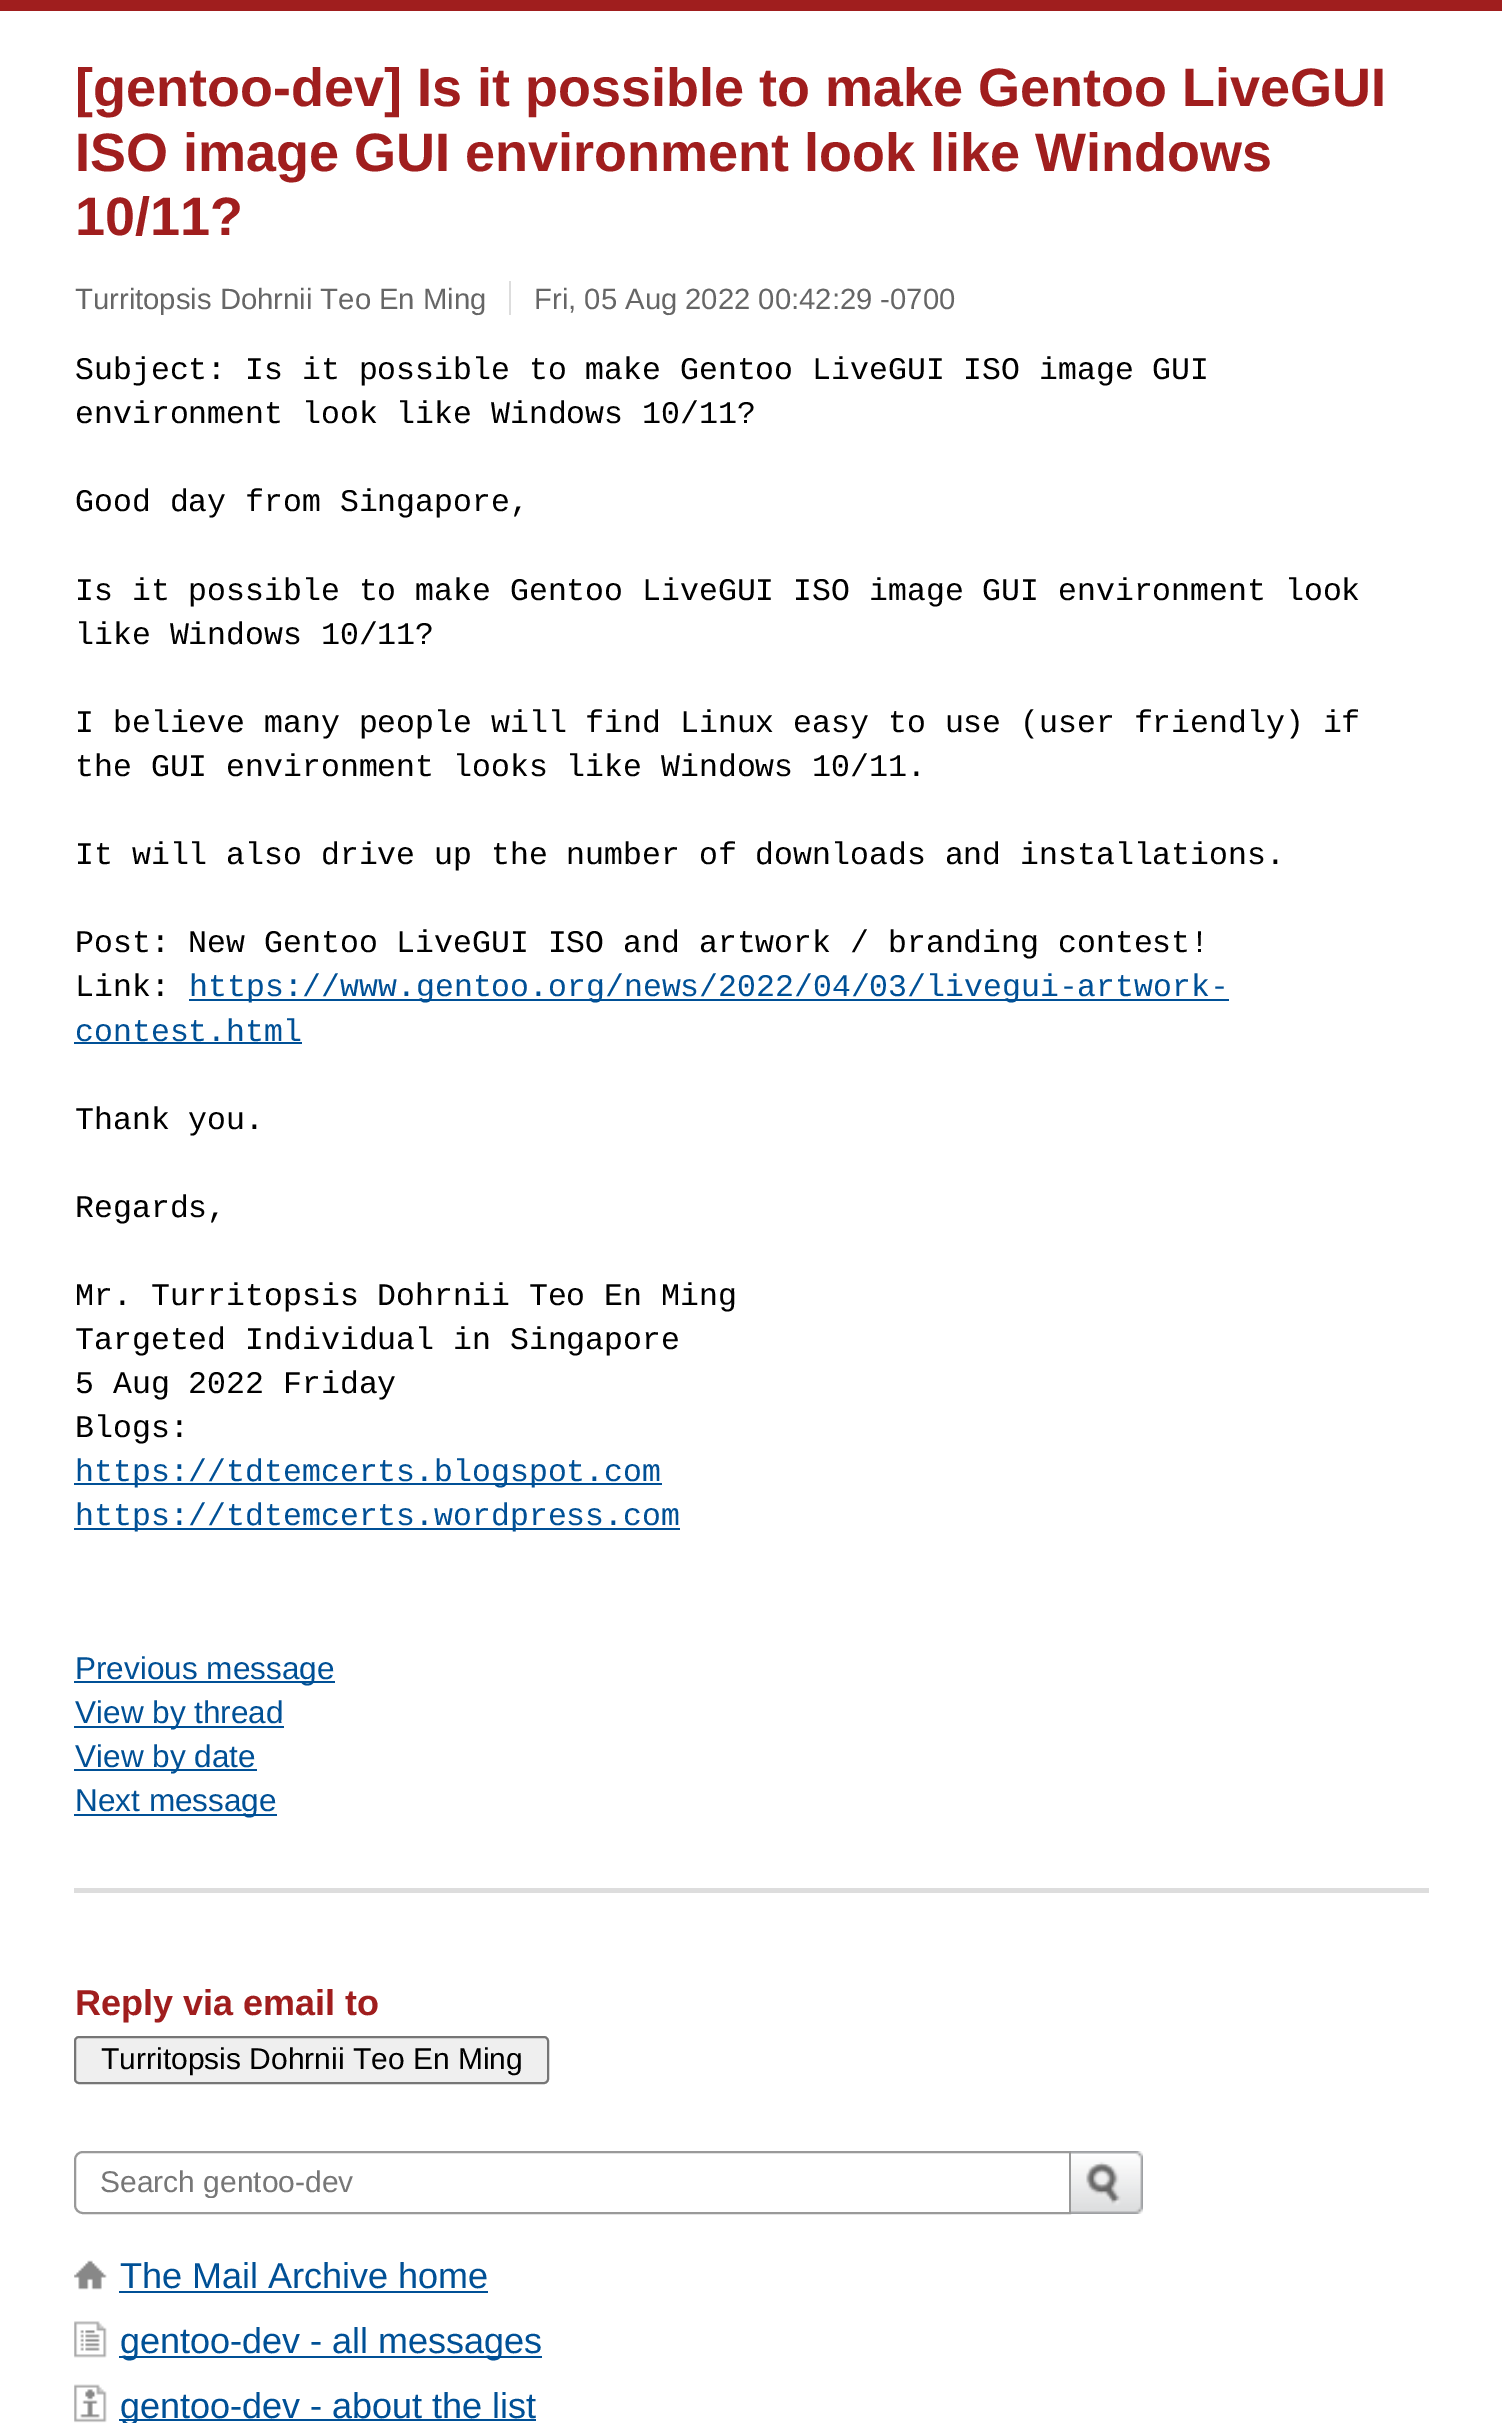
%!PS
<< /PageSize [1502 2423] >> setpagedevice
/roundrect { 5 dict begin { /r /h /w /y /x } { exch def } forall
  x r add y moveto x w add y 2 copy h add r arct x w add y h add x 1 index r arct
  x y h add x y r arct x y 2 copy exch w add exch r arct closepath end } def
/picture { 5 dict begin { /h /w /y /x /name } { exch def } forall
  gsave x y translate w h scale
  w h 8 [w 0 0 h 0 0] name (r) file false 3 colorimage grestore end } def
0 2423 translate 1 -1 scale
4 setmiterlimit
1 setgray
0 0 1502 2423 rectfill
0.627 0.118 0.118 setrgbcolor
0 0 1502 11 rectfill
/LiberationSans-Bold [54 0 0 -54 0 0] selectfont
75 106 moveto ([gentoo-dev] Is it possible to make Gentoo LiveGUI) show
75 171 moveto (ISO image GUI environment look like Windows) show
75 235 moveto (10/11?) show
/LiberationSans-Regular [29.25 0 0 -29.25 0 0] selectfont
0.4 setgray
75 309 moveto (Turritopsis Dohrnii Teo En Ming) show
0.867 setgray
509 281 2 34 rectfill
0.4 setgray
534 309 moveto (Fri, 05 Aug 2022 00:42:29 -0700) show
/LiberationMono-Regular [31.5 0 0 -31.5 0 0] selectfont
0 setgray
75 379 moveto (Subject: Is it possible to make Gentoo LiveGUI ISO image GUI) show
75 423 moveto (environment look like Windows 10/11?) show
75 511 moveto (Good day from Singapore,) show
75 600 moveto (Is it possible to make Gentoo LiveGUI ISO image GUI environment look) show
75 644 moveto (like Windows 10/11?) show
75 732 moveto (I believe many people will find Linux easy to use \(user friendly\) if) show
75 776 moveto (the GUI environment looks like Windows 10/11.) show
75 864 moveto (It will also drive up the number of downloads and installations.) show
75 952 moveto (Post: New Gentoo LiveGUI ISO and artwork / branding contest!) show
75 996 moveto (Link:) show
0 0.314 0.588 setrgbcolor
189 999 1040 2 rectfill
189 996 moveto (https://www.gentoo.org/news/2022/04/03/livegui-artwork-) show
75 1041 moveto (contest.html) show
74 1042 228 2 rectfill
0 setgray
75 1129 moveto (Thank you.) show
75 1217 moveto (Regards,) show
75 1305 moveto (Mr. Turritopsis Dohrnii Teo En Ming) show
75 1349 moveto (Targeted Individual in Singapore) show
75 1393 moveto (5 Aug 2022 Friday) show
75 1437 moveto (Blogs:) show
0 0.314 0.588 setrgbcolor
74 1483 588 2 rectfill
75 1481 moveto (https://tdtemcerts.blogspot.com) show
74 1528 606 2 rectfill
75 1525 moveto (https://tdtemcerts.wordpress.com) show
74 1681 261 2 rectfill
/LiberationSans-Regular [31.5 0 0 -31.5 0 0] selectfont
75 1679 moveto (Previous message) show
74 1726 210 2 rectfill
75 1723 moveto (View by thread) show
74 1769 183 2 rectfill
75 1767 moveto (View by date) show
74 1814 203 2 rectfill
75 1811 moveto (Next message) show
0.867 setgray
74 1888 1355 5 rectfill
/LiberationSans-Bold [36 0 0 -36 0 0] selectfont
0.627 0.118 0.118 setrgbcolor
75 2015 moveto (Reply via email to) show
0.937 setgray
75 2037 473 46 4 roundrect gsave fill grestore
0.463 setgray
2 setlinewidth
stroke
/LiberationSans-Regular [30 0 0 -30 0 0] selectfont
0 setgray
101 2069 moveto (Turritopsis Dohrnii Teo En Ming) show
0.6 setgray
newpath 83 2152 moveto 1070 2152 lineto 1070 2213 lineto 83 2213 lineto 78.5 2213 75 2209.5 75 2205 curveto 75 2160 lineto 75 2155.5 78.5 2152 83 2152 curveto closepath stroke
gsave
99 2165 947 33 rectclip
0.467 setgray
100 2192 moveto (Search gentoo-dev) show
grestore
(img1.rgb) 1071 2151 72 63 picture
(img2.rgb) 74 2260 33 30 picture
/LiberationSans-Regular [36 0 0 -36 0 0] selectfont
0 0.314 0.588 setrgbcolor
120 2288 moveto (The Mail Archive home) show
119 2291 369 2 rectfill
(img3.rgb) 74 2321 33 37 picture
119 2356 423 2 rectfill
120 2353 moveto (gentoo-dev - all messages) show
(img4.rgb) 74 2384 33 39 picture
119 2419 417 2 rectfill
120 2418 moveto (gentoo-dev - about the list) show
showpage
